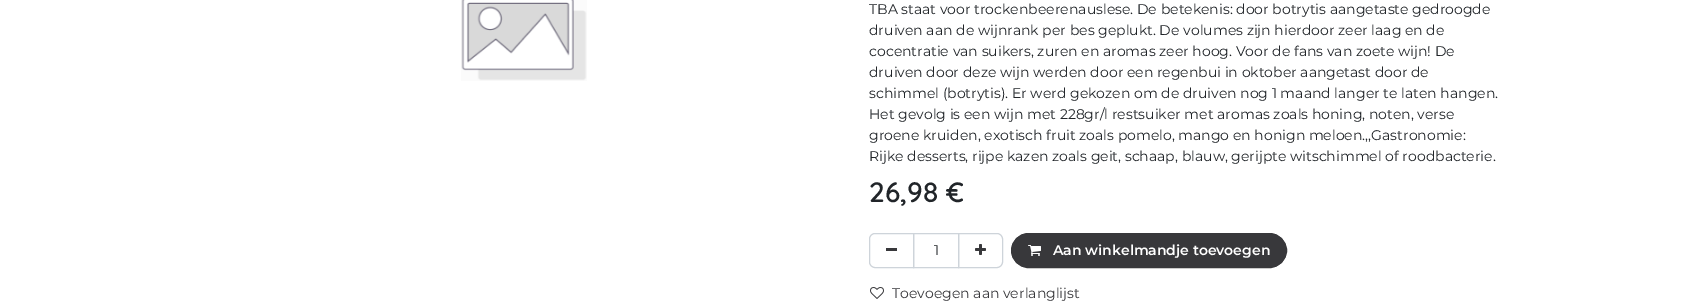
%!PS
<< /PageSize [1708 307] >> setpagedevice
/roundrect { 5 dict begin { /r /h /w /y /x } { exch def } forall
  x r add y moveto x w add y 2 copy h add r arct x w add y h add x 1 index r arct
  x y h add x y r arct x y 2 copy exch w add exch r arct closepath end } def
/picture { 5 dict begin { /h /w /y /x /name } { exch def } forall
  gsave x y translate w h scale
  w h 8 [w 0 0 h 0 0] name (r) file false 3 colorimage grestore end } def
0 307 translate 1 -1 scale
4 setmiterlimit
1 setgray
0 0 1708 307 rectfill
(img1.rgb) 461 0 126 81 picture
/Montserrat-Regular [14 0 0 -14 0 0] selectfont
0.129 0.145 0.161 setrgbcolor
869 14 moveto (TBA staat voor trockenbeerenauslese. De betekenis: door botrytis aangetaste gedroogde) show
869 35 moveto (druiven aan de wijnrank per bes geplukt. De volumes zijn hierdoor zeer laag en de) show
869 56 moveto (cocentratie van suikers, zuren en aromas zeer hoog. Voor de fans van zoete wijn! De) show
869 77 moveto (druiven door deze wijn werden door een regenbui in oktober aangetast door de) show
869 98 moveto (schimmel \(botrytis\). Er werd gekozen om de druiven nog 1 maand langer te laten hangen.) show
869 119 moveto (Het gevolg is een wijn met 228gr/l restsuiker met aromas zoals honing, noten, verse) show
869 140 moveto (groene kruiden, exotisch fruit zoals pomelo, mango en honign meloen.,,Gastronomie:) show
869 161 moveto (Rijke desserts, rijpe kazen zoals geit, schaap, blauw, gerijpte witschimmel of roodbacterie.) show
/Quicksand-SemiBold [28 0 0 -28 0 0] selectfont
869 202 moveto (26,98 €) show
0.808 0.831 0.855 setrgbcolor
913.5 233.5 45 34 rectstroke
newpath 875 233.5 moveto 913.5 233.5 lineto 913.5 267.5 lineto 875 267.5 lineto 872 267.5 869.5 265 869.5 262 curveto 869.5 239 lineto 869.5 236 872 233.5 875 233.5 curveto closepath stroke
0.22 0.22 0.231 setrgbcolor
886 248 11 3 rectfill
/Montserrat-Regular [14 0 0 -14 0 0] selectfont
0.129 0.145 0.161 setrgbcolor
934 255 moveto (1) show
0.808 0.831 0.855 setrgbcolor
newpath 958.5 233.5 moveto 997 233.5 lineto 1000 233.5 1002.5 236 1002.5 239 curveto 1002.5 262 lineto 1002.5 265 1000 267.5 997 267.5 curveto 958.5 267.5 lineto closepath stroke
(img2.rgb) 975 244 11 11 picture
0.22 0.22 0.231 setrgbcolor
1011.5 233.5 275 34 17 roundrect gsave fill grestore
stroke
(img3.rgb) 1028 245 13 11 picture
/Montserrat-SemiBold [14 0 0 -14 0 0] selectfont
1 setgray
1053 255 moveto (Aan winkelmandje toevoegen) show
(img4.rgb) 870 287 14 12 picture
/Montserrat-Regular [14 0 0 -14 0 0] selectfont
0.22 0.22 0.231 setrgbcolor
892 298 moveto (Toevoegen aan verlanglijst) show
showpage
